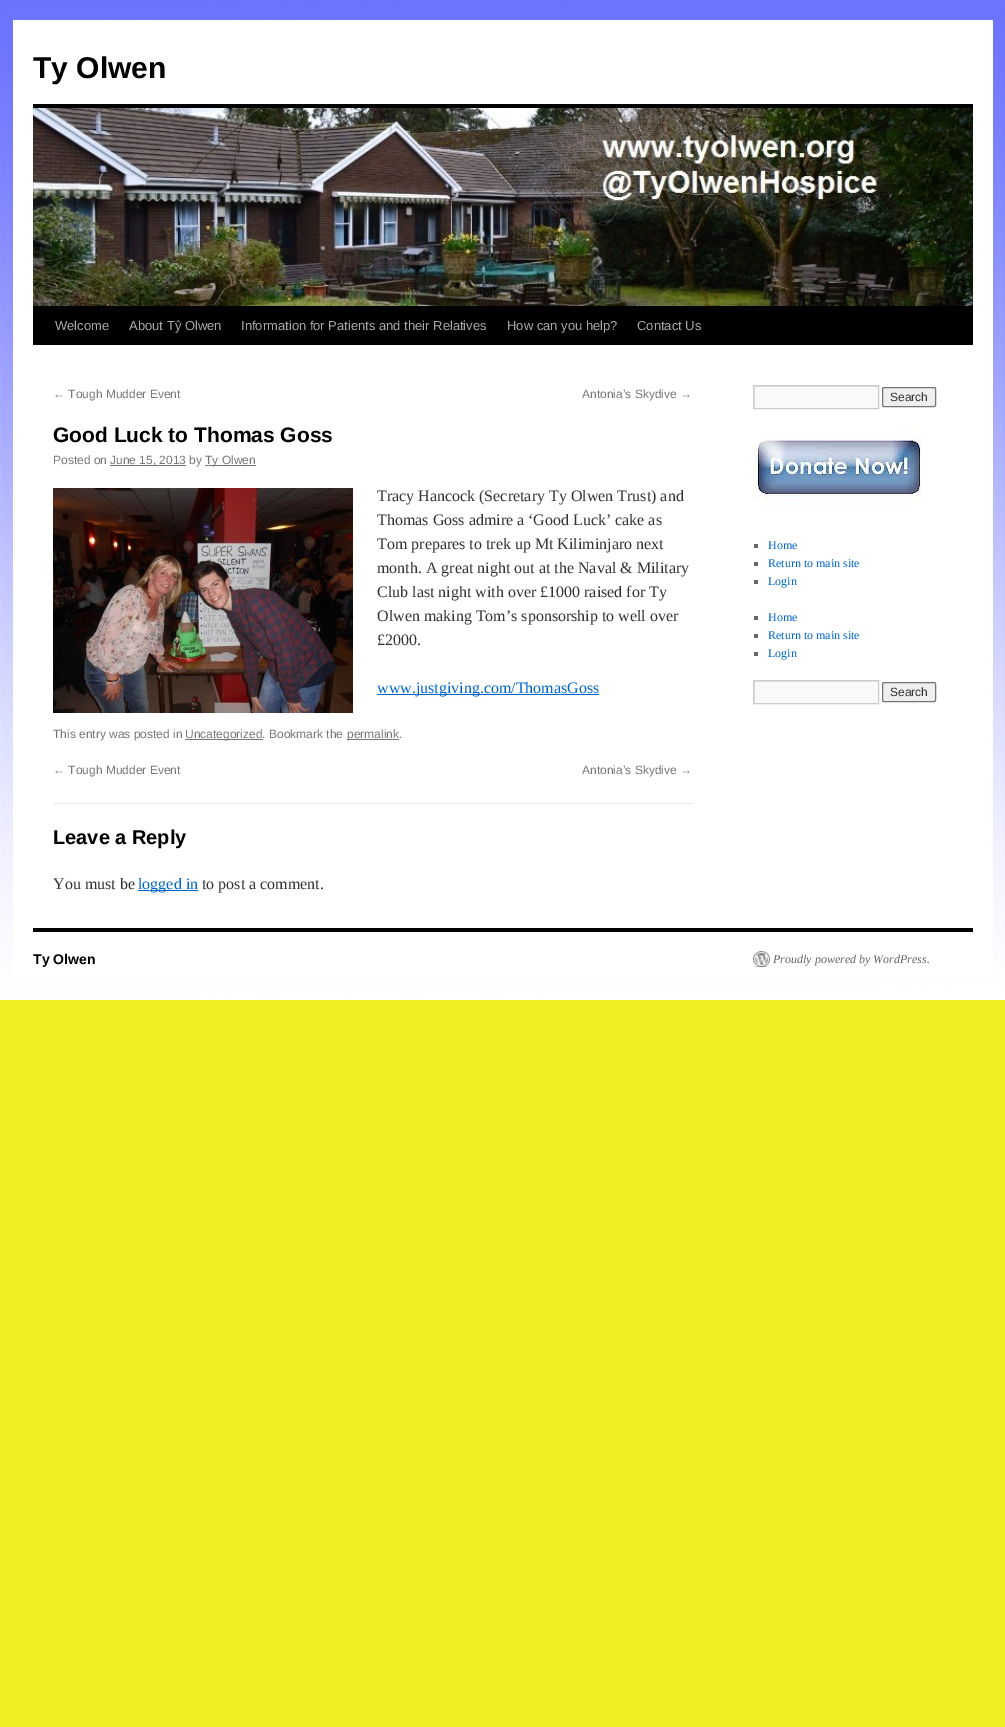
%!PS
<< /PageSize [1005 1727] >> setpagedevice
/roundrect { 5 dict begin { /r /h /w /y /x } { exch def } forall
  x r add y moveto x w add y 2 copy h add r arct x w add y h add x 1 index r arct
  x y h add x y r arct x y 2 copy exch w add exch r arct closepath end } def
/picture { 5 dict begin { /h /w /y /x /name } { exch def } forall
  gsave x y translate w h scale
  w h 8 [w 0 0 h 0 0] name (r) file false 3 colorimage grestore end } def
0 1727 translate 1 -1 scale
4 setmiterlimit
0.933 0.933 0.133 setrgbcolor
0 0 1005 1727 rectfill
(img1.rgb) 0 0 1005 1000 picture
1 setgray
13 20 980 959 rectfill
/LiberationSans-Bold [30 0 0 -30 0 0] selectfont
0 setgray
33 78 moveto (Ty Olwen) show
33 104 940 4 rectfill
33 306 940 39 rectfill
(img2.rgb) 33 108 940 198 picture
/LiberationSans-Regular [13 0 0 -13 0 0] selectfont
0.667 setgray
55 330 moveto (Welcome) show
129 330 moveto (About Tŷ Olwen) show
241 330 moveto (Information for Patients and their Relatives) show
507 330 moveto (How can you help?) show
637 330 moveto (Contact Us) show
/LiberationSans-Regular [12 0 0 -12 0 0] selectfont
0.467 setgray
53 398 moveto (← Tough Mudder Event) show
582 398 moveto (Antonia’s Skydive →) show
/LiberationSans-Bold [21 0 0 -21 0 0] selectfont
0 setgray
53 442 moveto (Good Luck to Thomas Goss) show
/LiberationSans-Regular [12 0 0 -12 0 0] selectfont
0.467 setgray
53 464 moveto (Posted on) show
110 465 76 1 rectfill
110 464 moveto (June 15, 2013 by) show
205 465 51 1 rectfill
205 464 moveto (Ty Olwen) show
(img3.rgb) 53 488 300 225 picture
/LiberationSerif-Regular [16 0 0 -16 0 0] selectfont
0.2 setgray
377 501 moveto (Tracy Hancock \(Secretary Ty Olwen Trust\) and) show
377 525 moveto (Thomas Goss admire a ‘Good Luck’ cake as) show
377 549 moveto (Tom prepares to trek up Mt Kiliminjaro next) show
377 573 moveto (month. A great night out at the Naval & Military) show
377 597 moveto (Club last night with over £1000 raised for Ty) show
377 621 moveto (Olwen making Tom’s sponsorship to well over) show
377 645 moveto (£2000.) show
0 0.4 0.8 setrgbcolor
377 694 222 1 rectfill
377 693 moveto (www.justgiving.com/ThomasGoss) show
/LiberationSans-Regular [12 0 0 -12 0 0] selectfont
0.467 setgray
53 738 moveto (This entry was posted in) show
185 739 78 1 rectfill
185 738 moveto (Uncategorized. Bookmark the) show
347 739 52 1 rectfill
347 738 moveto (permalink.) show
53 774 moveto (← Tough Mudder Event) show
582 774 moveto (Antonia’s Skydive →) show
0.906 setgray
53 803 640 1 rectfill
/LiberationSans-Bold [20 0 0 -20 0 0] selectfont
0 setgray
53 844 moveto (Leave a Reply) show
/LiberationSerif-Regular [16 0 0 -16 0 0] selectfont
0.2 setgray
53 889 moveto (You must be) show
0 0.4 0.8 setrgbcolor
138 890 60 1 rectfill
138 889 moveto (logged in) show
0.2 setgray
202 889 moveto (to post a comment.) show
0.976 setgray
755 387 123 21 rectfill
gsave
754 386 124 22 rectclip
0.878 setgray
newpath 655 287 moveto 977 287 lineto 977 507 lineto 655 507 lineto closepath 755 387 moveto 879 387 lineto 879 409 lineto 755 409 lineto closepath eofill
grestore
0.8 setgray
753.5 385.5 125 23 rectstroke
0.937 setgray
882.5 387.5 53 19 1.5 roundrect gsave fill grestore
0.463 setgray
stroke
/LiberationSans-Regular [12 0 0 -12 0 0] selectfont
0.2 setgray
890 401 moveto (Search) show
(img4.rgb) 753 427 172 80 picture
0.4 setgray
754 544 4 4 rectfill
/LiberationSerif-Regular [12 0 0 -12 0 0] selectfont
0 0.4 0.8 setrgbcolor
768 549 moveto (Home) show
0.4 setgray
754 562 4 4 rectfill
0 0.4 0.8 setrgbcolor
768 567 moveto (Return to main site) show
0.4 setgray
754 580 4 4 rectfill
0 0.4 0.8 setrgbcolor
768 585 moveto (Login) show
0.4 setgray
754 616 4 4 rectfill
0 0.4 0.8 setrgbcolor
768 621 moveto (Home) show
0.4 setgray
754 634 4 4 rectfill
0 0.4 0.8 setrgbcolor
768 639 moveto (Return to main site) show
0.4 setgray
754 652 4 4 rectfill
0 0.4 0.8 setrgbcolor
768 657 moveto (Login) show
0.976 setgray
755 682 123 21 rectfill
gsave
754 681 124 22 rectclip
0.878 setgray
newpath 655 582 moveto 977 582 lineto 977 802 lineto 655 802 lineto closepath 755 682 moveto 879 682 lineto 879 704 lineto 755 704 lineto closepath eofill
grestore
0.8 setgray
753.5 680.5 125 23 rectstroke
0.937 setgray
882.5 682.5 53 19 1.5 roundrect gsave fill grestore
0.463 setgray
stroke
/LiberationSans-Regular [12 0 0 -12 0 0] selectfont
0.2 setgray
890 696 moveto (Search) show
0 setgray
33 928 940 4 rectfill
/LiberationSans-Bold [14 0 0 -14 0 0] selectfont
33 964 moveto (Ty Olwen) show
(img5.rgb) 753 951 17 16 picture
/LiberationSerif-Italic [12 0 0 -12 0 0] selectfont
0.4 setgray
773 963 moveto (Proudly powered by WordPress.) show
showpage
